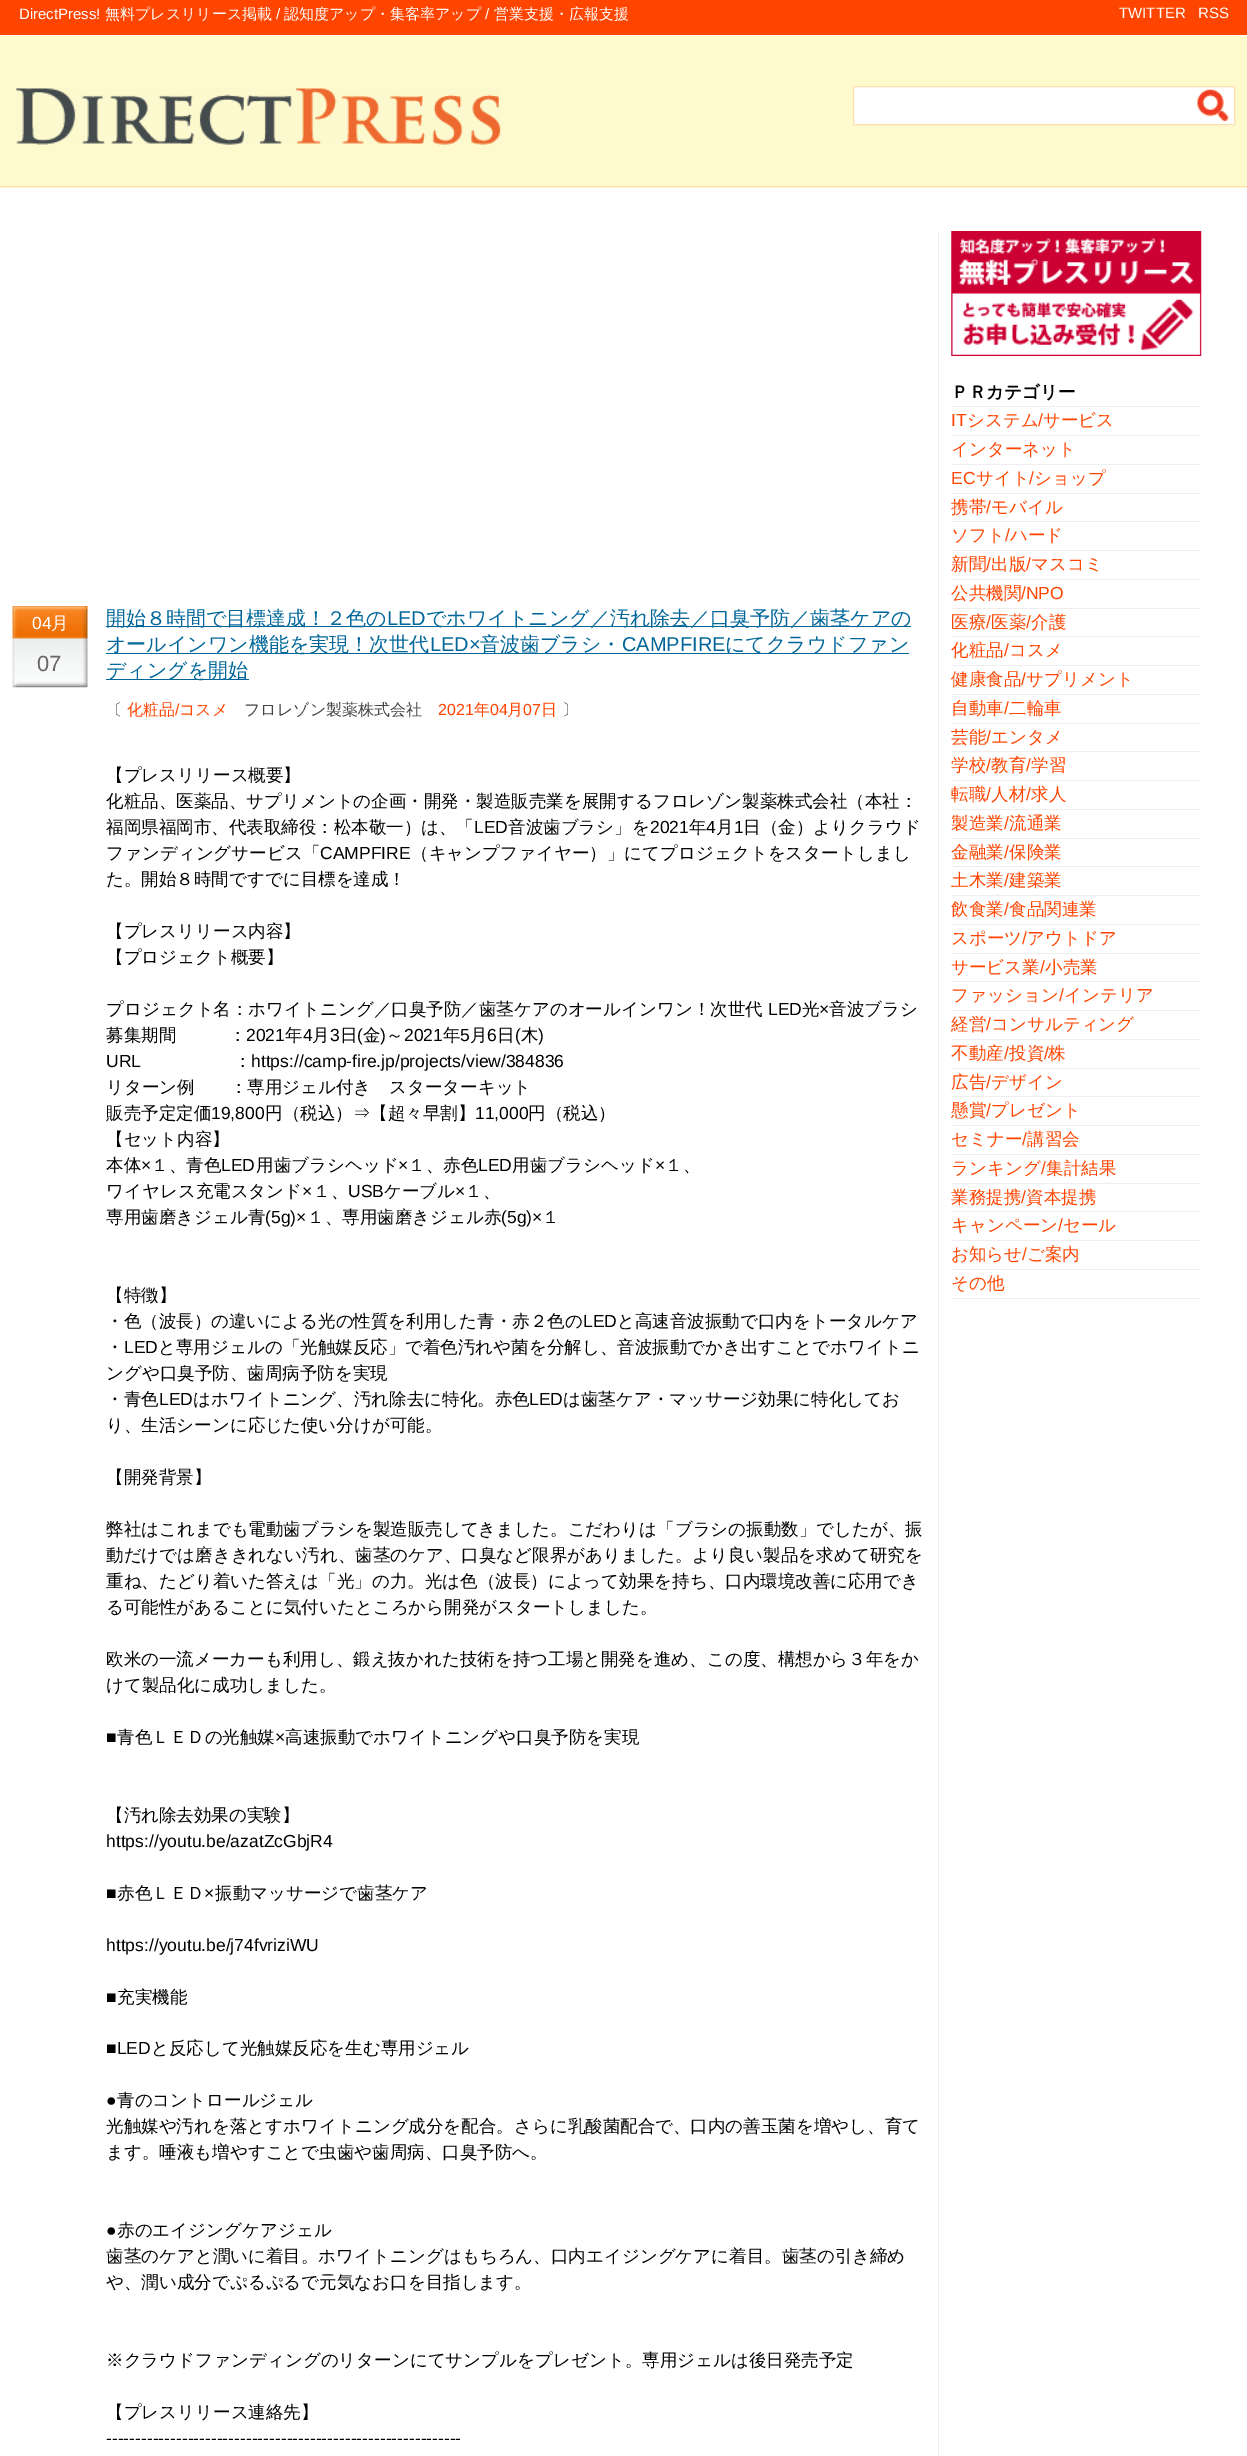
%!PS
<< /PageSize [1247 2456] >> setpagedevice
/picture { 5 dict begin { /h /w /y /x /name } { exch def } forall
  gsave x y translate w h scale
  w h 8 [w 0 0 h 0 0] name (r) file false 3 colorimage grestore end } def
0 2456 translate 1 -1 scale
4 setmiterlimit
1 setgray
0 0 1247 2456 rectfill
1 0.271 0 setrgbcolor
0 0 1247 35 rectfill
/LiberationSans-Regular [15 0 0 -15 0 0] selectfont
1 setgray
19 19 moveto (DirectPress!) show
/WenQuanYiZenHei-Medium [15 0 0 -15 0 0] selectfont
105 19 moveto (無料プレスリリース掲載) show
/LiberationSans-Regular [15 0 0 -15 0 0] selectfont
276 19 moveto (/) show
/WenQuanYiZenHei-Medium [15 0 0 -15 0 0] selectfont
284 19 moveto (認知度アップ・集客率アップ) show
/LiberationSans-Regular [15 0 0 -15 0 0] selectfont
485 19 moveto (/) show
/WenQuanYiZenHei-Medium [15 0 0 -15 0 0] selectfont
494 19 moveto (営業支援・広報支援) show
/LiberationSans-Regular [15 0 0 -15 0 0] selectfont
1119 18 moveto (TWITTER) show
1198 18 moveto (RSS) show
1 0.98 0.804 setrgbcolor
0 36 1247 152 rectfill
1 0.871 0.678 setrgbcolor
0 186 1247 1 rectfill
(img1.rgb) 16 88 485 57 picture
1 setgray
newpath 853.5 86.5 moveto 1234.5 86.5 lineto 1234.5 124.5 lineto 853.5 124.5 lineto closepath gsave fill grestore
1 0.871 0.678 setrgbcolor
stroke
(img2.rgb) 1197 89 32 32 picture
0.933 setgray
938 231 1 2225 rectfill
(img3.rgb) 12 606 76 82 picture
/LiberationSans-Regular [17.5 0 0 -17.5 0 0] selectfont
1 setgray
32 629 moveto (04) show
/WenQuanYiZenHei-Medium [17.5 0 0 -17.5 0 0] selectfont
51 629 moveto (月) show
/LiberationSans-Regular [22 0 0 -22 0 0] selectfont
0.4 setgray
37 671 moveto (07) show
0 0.4 0.6 setrgbcolor
106 626 805 1 rectfill
/WenQuanYiZenHei-Medium [20 0 0 -20 0 0] selectfont
106 625 moveto (開始８時間で目標達成！２色の) show
/LiberationSans-Regular [20 0 0 -20 0 0] selectfont
387 625 moveto (LED) show
/WenQuanYiZenHei-Medium [20 0 0 -20 0 0] selectfont
426 625 moveto (でホワイトニング／汚れ除去／口臭予防／歯茎ケアの) show
106 653 803 1 rectfill
106 651 moveto (オールインワン機能を実現！次世代) show
/LiberationSans-Regular [20 0 0 -20 0 0] selectfont
430 651 moveto (LED×) show
/WenQuanYiZenHei-Medium [20 0 0 -20 0 0] selectfont
480 651 moveto (音波歯ブラシ・) show
/LiberationSans-Regular [20 0 0 -20 0 0] selectfont
622 651 moveto (CAMPFIRE) show
/WenQuanYiZenHei-Medium [20 0 0 -20 0 0] selectfont
725 651 moveto (にてクラウドファン) show
106 679 143 1 rectfill
106 677 moveto (ディングを開始) show
/WenQuanYiZenHei-Medium [16 0 0 -16 0 0] selectfont
0.267 setgray
106 715 moveto (〔) show
1 0.271 0 setrgbcolor
127 715 moveto (化粧品) show
/LiberationSans-Regular [16 0 0 -16 0 0] selectfont
175 715 moveto (/) show
/WenQuanYiZenHei-Medium [16 0 0 -16 0 0] selectfont
179 715 moveto (コスメ) show
0.267 setgray
244 715 moveto (フロレゾン製薬株式会社) show
/LiberationSans-Regular [16 0 0 -16 0 0] selectfont
1 0.271 0 setrgbcolor
438 715 moveto (2021) show
/WenQuanYiZenHei-Medium [16 0 0 -16 0 0] selectfont
474 715 moveto (年) show
/LiberationSans-Regular [16 0 0 -16 0 0] selectfont
490 715 moveto (04) show
/WenQuanYiZenHei-Medium [16 0 0 -16 0 0] selectfont
507 715 moveto (月) show
/LiberationSans-Regular [16 0 0 -16 0 0] selectfont
523 715 moveto (07) show
/WenQuanYiZenHei-Medium [16 0 0 -16 0 0] selectfont
541 715 moveto (日) show
0.267 setgray
562 715 moveto (〕) show
/WenQuanYiZenHei-Medium [17.5 0 0 -17.5 0 0] selectfont
0 setgray
106 781 moveto (【プレスリリース概要】) show
106 807 moveto (化粧品、医薬品、サプリメントの企画・開発・製造販売業を展開するフロレゾン製薬株式会社（本社：) show
106 833 moveto (福岡県福岡市、代表取締役：松本敬一）は、「) show
/LiberationSans-Regular [17.5 0 0 -17.5 0 0] selectfont
474 833 moveto (LED) show
/WenQuanYiZenHei-Medium [17.5 0 0 -17.5 0 0] selectfont
508 833 moveto (音波歯ブラシ」を) show
/LiberationSans-Regular [17.5 0 0 -17.5 0 0] selectfont
650 833 moveto (2021) show
/WenQuanYiZenHei-Medium [17.5 0 0 -17.5 0 0] selectfont
689 833 moveto (年) show
/LiberationSans-Regular [17.5 0 0 -17.5 0 0] selectfont
706 833 moveto (4) show
/WenQuanYiZenHei-Medium [17.5 0 0 -17.5 0 0] selectfont
716 833 moveto (月) show
/LiberationSans-Regular [17.5 0 0 -17.5 0 0] selectfont
734 833 moveto (1) show
/WenQuanYiZenHei-Medium [17.5 0 0 -17.5 0 0] selectfont
743 833 moveto (日（金）よりクラウド) show
106 859 moveto (ファンディングサービス「) show
/LiberationSans-Regular [17.5 0 0 -17.5 0 0] selectfont
320 859 moveto (CAMPFIRE) show
/WenQuanYiZenHei-Medium [17.5 0 0 -17.5 0 0] selectfont
411 859 moveto (（キャンプファイヤー）」にてプロジェクトをスタートしまし) show
106 885 moveto (た。開始８時間ですでに目標を達成！) show
106 937 moveto (【プレスリリース内容】) show
106 963 moveto (【プロジェクト概要】) show
106 1015 moveto (プロジェクト名：ホワイトニング／口臭予防／歯茎ケアのオールインワン！次世代) show
/LiberationSans-Regular [17.5 0 0 -17.5 0 0] selectfont
768 1015 moveto (LED) show
/WenQuanYiZenHei-Medium [17.5 0 0 -17.5 0 0] selectfont
802 1015 moveto (光) show
/LiberationSans-Regular [17.5 0 0 -17.5 0 0] selectfont
819 1015 moveto (×) show
/WenQuanYiZenHei-Medium [17.5 0 0 -17.5 0 0] selectfont
829 1015 moveto (音波ブラシ) show
106 1041 moveto (募集期間　　　：) show
/LiberationSans-Regular [17.5 0 0 -17.5 0 0] selectfont
246 1041 moveto (2021) show
/WenQuanYiZenHei-Medium [17.5 0 0 -17.5 0 0] selectfont
285 1041 moveto (年) show
/LiberationSans-Regular [17.5 0 0 -17.5 0 0] selectfont
303 1041 moveto (4) show
/WenQuanYiZenHei-Medium [17.5 0 0 -17.5 0 0] selectfont
312 1041 moveto (月) show
/LiberationSans-Regular [17.5 0 0 -17.5 0 0] selectfont
330 1041 moveto (3) show
/WenQuanYiZenHei-Medium [17.5 0 0 -17.5 0 0] selectfont
340 1041 moveto (日) show
/LiberationSans-Regular [17.5 0 0 -17.5 0 0] selectfont
357 1041 moveto (\() show
/WenQuanYiZenHei-Medium [17.5 0 0 -17.5 0 0] selectfont
363 1041 moveto (金) show
/LiberationSans-Regular [17.5 0 0 -17.5 0 0] selectfont
380 1041 moveto (\)) show
/WenQuanYiZenHei-Medium [17.5 0 0 -17.5 0 0] selectfont
386 1041 moveto (～) show
/LiberationSans-Regular [17.5 0 0 -17.5 0 0] selectfont
404 1041 moveto (2021) show
/WenQuanYiZenHei-Medium [17.5 0 0 -17.5 0 0] selectfont
443 1041 moveto (年) show
/LiberationSans-Regular [17.5 0 0 -17.5 0 0] selectfont
460 1041 moveto (5) show
/WenQuanYiZenHei-Medium [17.5 0 0 -17.5 0 0] selectfont
470 1041 moveto (月) show
/LiberationSans-Regular [17.5 0 0 -17.5 0 0] selectfont
487 1041 moveto (6) show
/WenQuanYiZenHei-Medium [17.5 0 0 -17.5 0 0] selectfont
497 1041 moveto (日) show
/LiberationSans-Regular [17.5 0 0 -17.5 0 0] selectfont
515 1041 moveto (\() show
/WenQuanYiZenHei-Medium [17.5 0 0 -17.5 0 0] selectfont
521 1041 moveto (木) show
/LiberationSans-Regular [17.5 0 0 -17.5 0 0] selectfont
538 1041 moveto (\)) show
106 1067 moveto (URL) show
/WenQuanYiZenHei-Medium [17.5 0 0 -17.5 0 0] selectfont
234 1067 moveto (：) show
/LiberationSans-Regular [17.5 0 0 -17.5 0 0] selectfont
251 1067 moveto (https://camp-fire.jp/projects/view/384836) show
/WenQuanYiZenHei-Medium [17.5 0 0 -17.5 0 0] selectfont
106 1093 moveto (リターン例　　：専用ジェル付き　スターターキット) show
106 1119 moveto (販売予定定価) show
/LiberationSans-Regular [17.5 0 0 -17.5 0 0] selectfont
211 1119 moveto (19,800) show
/WenQuanYiZenHei-Medium [17.5 0 0 -17.5 0 0] selectfont
265 1119 moveto (円（税込）⇒【超々早割】) show
/LiberationSans-Regular [17.5 0 0 -17.5 0 0] selectfont
475 1119 moveto (11,000) show
/WenQuanYiZenHei-Medium [17.5 0 0 -17.5 0 0] selectfont
528 1119 moveto (円（税込）) show
106 1145 moveto (【セット内容】) show
106 1171 moveto (本体) show
/LiberationSans-Regular [17.5 0 0 -17.5 0 0] selectfont
141 1171 moveto (×) show
/WenQuanYiZenHei-Medium [17.5 0 0 -17.5 0 0] selectfont
151 1171 moveto (１、青色) show
/LiberationSans-Regular [17.5 0 0 -17.5 0 0] selectfont
221 1171 moveto (LED) show
/WenQuanYiZenHei-Medium [17.5 0 0 -17.5 0 0] selectfont
256 1171 moveto (用歯ブラシヘッド) show
/LiberationSans-Regular [17.5 0 0 -17.5 0 0] selectfont
398 1171 moveto (×) show
/WenQuanYiZenHei-Medium [17.5 0 0 -17.5 0 0] selectfont
408 1171 moveto (１、赤色) show
/LiberationSans-Regular [17.5 0 0 -17.5 0 0] selectfont
478 1171 moveto (LED) show
/WenQuanYiZenHei-Medium [17.5 0 0 -17.5 0 0] selectfont
512 1171 moveto (用歯ブラシヘッド) show
/LiberationSans-Regular [17.5 0 0 -17.5 0 0] selectfont
655 1171 moveto (×) show
/WenQuanYiZenHei-Medium [17.5 0 0 -17.5 0 0] selectfont
665 1171 moveto (１、) show
106 1197 moveto (ワイヤレス充電スタンド) show
/LiberationSans-Regular [17.5 0 0 -17.5 0 0] selectfont
302 1197 moveto (×) show
/WenQuanYiZenHei-Medium [17.5 0 0 -17.5 0 0] selectfont
313 1197 moveto (１、) show
/LiberationSans-Regular [17.5 0 0 -17.5 0 0] selectfont
348 1197 moveto (USB) show
/WenQuanYiZenHei-Medium [17.5 0 0 -17.5 0 0] selectfont
384 1197 moveto (ケーブル) show
/LiberationSans-Regular [17.5 0 0 -17.5 0 0] selectfont
455 1197 moveto (×) show
/WenQuanYiZenHei-Medium [17.5 0 0 -17.5 0 0] selectfont
465 1197 moveto (１、) show
106 1223 moveto (専用歯磨きジェル青) show
/LiberationSans-Regular [17.5 0 0 -17.5 0 0] selectfont
265 1223 moveto (\(5g\)×) show
/WenQuanYiZenHei-Medium [17.5 0 0 -17.5 0 0] selectfont
307 1223 moveto (１、専用歯磨きジェル赤) show
/LiberationSans-Regular [17.5 0 0 -17.5 0 0] selectfont
501 1223 moveto (\(5g\)×) show
/WenQuanYiZenHei-Medium [17.5 0 0 -17.5 0 0] selectfont
542 1223 moveto (１) show
106 1301 moveto (【特徴】) show
106 1327 moveto (・色（波長）の違いによる光の性質を利用した青・赤２色の) show
/LiberationSans-Regular [17.5 0 0 -17.5 0 0] selectfont
583 1327 moveto (LED) show
/WenQuanYiZenHei-Medium [17.5 0 0 -17.5 0 0] selectfont
617 1327 moveto (と高速音波振動で口内をトータルケア) show
106 1353 moveto (・) show
/LiberationSans-Regular [17.5 0 0 -17.5 0 0] selectfont
124 1353 moveto (LED) show
/WenQuanYiZenHei-Medium [17.5 0 0 -17.5 0 0] selectfont
158 1353 moveto (と専用ジェルの「光触媒反応」で着色汚れや菌を分解し、音波振動でかき出すことでホワイトニ) show
106 1379 moveto (ングや口臭予防、歯周病予防を実現) show
106 1405 moveto (・青色) show
/LiberationSans-Regular [17.5 0 0 -17.5 0 0] selectfont
159 1405 moveto (LED) show
/WenQuanYiZenHei-Medium [17.5 0 0 -17.5 0 0] selectfont
193 1405 moveto (はホワイトニング、汚れ除去に特化。赤色) show
/LiberationSans-Regular [17.5 0 0 -17.5 0 0] selectfont
529 1405 moveto (LED) show
/WenQuanYiZenHei-Medium [17.5 0 0 -17.5 0 0] selectfont
563 1405 moveto (は歯茎ケア・マッサージ効果に特化してお) show
106 1431 moveto (り、生活シーンに応じた使い分けが可能。) show
106 1483 moveto (【開発背景】) show
106 1535 moveto (弊社はこれまでも電動歯ブラシを製造販売してきました。こだわりは「ブラシの振動数」でしたが、振) show
106 1561 moveto (動だけでは磨ききれない汚れ、歯茎のケア、口臭など限界がありました。より良い製品を求めて研究を) show
106 1587 moveto (重ね、たどり着いた答えは「光」の力。光は色（波長）によって効果を持ち、口内環境改善に応用でき) show
106 1613 moveto (る可能性があることに気付いたところから開発がスタートしました。) show
106 1665 moveto (欧米の一流メーカーも利用し、鍛え抜かれた技術を持つ工場と開発を進め、この度、構想から３年をか) show
106 1691 moveto (けて製品化に成功しました。) show
/LiberationSans-Regular [17.5 0 0 -17.5 0 0] selectfont
106 1743 moveto (■) show
/WenQuanYiZenHei-Medium [17.5 0 0 -17.5 0 0] selectfont
117 1743 moveto (青色ＬＥＤの光触媒) show
/LiberationSans-Regular [17.5 0 0 -17.5 0 0] selectfont
275 1743 moveto (×) show
/WenQuanYiZenHei-Medium [17.5 0 0 -17.5 0 0] selectfont
285 1743 moveto (高速振動でホワイトニングや口臭予防を実現) show
106 1821 moveto (【汚れ除去効果の実験】) show
/LiberationSans-Regular [17.5 0 0 -17.5 0 0] selectfont
106 1847 moveto (https://youtu.be/azatZcGbjR4) show
106 1899 moveto (■) show
/WenQuanYiZenHei-Medium [17.5 0 0 -17.5 0 0] selectfont
117 1899 moveto (赤色ＬＥＤ) show
/LiberationSans-Regular [17.5 0 0 -17.5 0 0] selectfont
204 1899 moveto (×) show
/WenQuanYiZenHei-Medium [17.5 0 0 -17.5 0 0] selectfont
215 1899 moveto (振動マッサージで歯茎ケア) show
/LiberationSans-Regular [17.5 0 0 -17.5 0 0] selectfont
106 1951 moveto (https://youtu.be/j74fvriziWU) show
106 2003 moveto (■) show
/WenQuanYiZenHei-Medium [17.5 0 0 -17.5 0 0] selectfont
117 2003 moveto (充実機能) show
/LiberationSans-Regular [17.5 0 0 -17.5 0 0] selectfont
106 2054 moveto (■LED) show
/WenQuanYiZenHei-Medium [17.5 0 0 -17.5 0 0] selectfont
151 2054 moveto (と反応して光触媒反応を生む専用ジェル) show
/LiberationSans-Regular [17.5 0 0 -17.5 0 0] selectfont
106 2106 moveto (●) show
/WenQuanYiZenHei-Medium [17.5 0 0 -17.5 0 0] selectfont
117 2106 moveto (青のコントロールジェル) show
106 2132 moveto (光触媒や汚れを落とすホワイトニング成分を配合。さらに乳酸菌配合で、口内の善玉菌を増やし、育て) show
106 2158 moveto (ます。唾液も増やすことで虫歯や歯周病、口臭予防へ。) show
/LiberationSans-Regular [17.5 0 0 -17.5 0 0] selectfont
106 2236 moveto (●) show
/WenQuanYiZenHei-Medium [17.5 0 0 -17.5 0 0] selectfont
117 2236 moveto (赤のエイジングケアジェル) show
106 2262 moveto (歯茎のケアと潤いに着目。ホワイトニングはもちろん、口内エイジングケアに着目。歯茎の引き締め) show
106 2288 moveto (や、潤い成分でぷるぷるで元気なお口を目指します。) show
106 2366 moveto (※クラウドファンディングのリターンにてサンプルをプレゼント。専用ジェルは後日発売予定) show
106 2418 moveto (【プレスリリース連絡先】) show
/LiberationSans-Regular [17.5 0 0 -17.5 0 0] selectfont
106 2444 moveto (-------------------------------------------------------------) show
(img4.rgb) 951 231 251 125 picture
0.933 setgray
951 406 250 1 rectfill
/WenQuanYiZenHei-Bold [17.5 0 0 -17.5 0 0] selectfont
0 setgray
951 398 moveto (ＰＲカテゴリー) show
0.933 setgray
951 435 250 1 rectfill
/LiberationSans-Regular [17.5 0 0 -17.5 0 0] selectfont
1 0.271 0 setrgbcolor
951 426 moveto (IT) show
/WenQuanYiZenHei-Medium [17.5 0 0 -17.5 0 0] selectfont
967 426 moveto (システム) show
/LiberationSans-Regular [17.5 0 0 -17.5 0 0] selectfont
1038 426 moveto (/) show
/WenQuanYiZenHei-Medium [17.5 0 0 -17.5 0 0] selectfont
1043 426 moveto (サービス) show
0.933 setgray
951 464 250 1 rectfill
1 0.271 0 setrgbcolor
951 455 moveto (インターネット) show
0.933 setgray
951 493 250 1 rectfill
/LiberationSans-Regular [17.5 0 0 -17.5 0 0] selectfont
1 0.271 0 setrgbcolor
951 484 moveto (EC) show
/WenQuanYiZenHei-Medium [17.5 0 0 -17.5 0 0] selectfont
976 484 moveto (サイト) show
/LiberationSans-Regular [17.5 0 0 -17.5 0 0] selectfont
1029 484 moveto (/) show
/WenQuanYiZenHei-Medium [17.5 0 0 -17.5 0 0] selectfont
1034 484 moveto (ショップ) show
0.933 setgray
951 521 250 1 rectfill
1 0.271 0 setrgbcolor
951 513 moveto (携帯) show
/LiberationSans-Regular [17.5 0 0 -17.5 0 0] selectfont
986 513 moveto (/) show
/WenQuanYiZenHei-Medium [17.5 0 0 -17.5 0 0] selectfont
991 513 moveto (モバイル) show
0.933 setgray
951 550 250 1 rectfill
1 0.271 0 setrgbcolor
951 541 moveto (ソフト) show
/LiberationSans-Regular [17.5 0 0 -17.5 0 0] selectfont
1005 541 moveto (/) show
/WenQuanYiZenHei-Medium [17.5 0 0 -17.5 0 0] selectfont
1010 541 moveto (ハード) show
0.933 setgray
951 579 250 1 rectfill
1 0.271 0 setrgbcolor
951 570 moveto (新聞) show
/LiberationSans-Regular [17.5 0 0 -17.5 0 0] selectfont
986 570 moveto (/) show
/WenQuanYiZenHei-Medium [17.5 0 0 -17.5 0 0] selectfont
991 570 moveto (出版) show
/LiberationSans-Regular [17.5 0 0 -17.5 0 0] selectfont
1026 570 moveto (/) show
/WenQuanYiZenHei-Medium [17.5 0 0 -17.5 0 0] selectfont
1031 570 moveto (マスコミ) show
0.933 setgray
951 608 250 1 rectfill
1 0.271 0 setrgbcolor
951 599 moveto (公共機関) show
/LiberationSans-Regular [17.5 0 0 -17.5 0 0] selectfont
1021 599 moveto (/NPO) show
0.933 setgray
951 636 250 1 rectfill
/WenQuanYiZenHei-Medium [17.5 0 0 -17.5 0 0] selectfont
1 0.271 0 setrgbcolor
951 628 moveto (医療) show
/LiberationSans-Regular [17.5 0 0 -17.5 0 0] selectfont
986 628 moveto (/) show
/WenQuanYiZenHei-Medium [17.5 0 0 -17.5 0 0] selectfont
991 628 moveto (医薬) show
/LiberationSans-Regular [17.5 0 0 -17.5 0 0] selectfont
1026 628 moveto (/) show
/WenQuanYiZenHei-Medium [17.5 0 0 -17.5 0 0] selectfont
1031 628 moveto (介護) show
0.933 setgray
951 665 250 1 rectfill
1 0.271 0 setrgbcolor
951 656 moveto (化粧品) show
/LiberationSans-Regular [17.5 0 0 -17.5 0 0] selectfont
1004 656 moveto (/) show
/WenQuanYiZenHei-Medium [17.5 0 0 -17.5 0 0] selectfont
1009 656 moveto (コスメ) show
0.933 setgray
951 694 250 1 rectfill
1 0.271 0 setrgbcolor
951 685 moveto (健康食品) show
/LiberationSans-Regular [17.5 0 0 -17.5 0 0] selectfont
1021 685 moveto (/) show
/WenQuanYiZenHei-Medium [17.5 0 0 -17.5 0 0] selectfont
1026 685 moveto (サプリメント) show
0.933 setgray
951 723 250 1 rectfill
1 0.271 0 setrgbcolor
951 714 moveto (自動車) show
/LiberationSans-Regular [17.5 0 0 -17.5 0 0] selectfont
1004 714 moveto (/) show
/WenQuanYiZenHei-Medium [17.5 0 0 -17.5 0 0] selectfont
1009 714 moveto (二輪車) show
0.933 setgray
951 751 250 1 rectfill
1 0.271 0 setrgbcolor
951 743 moveto (芸能) show
/LiberationSans-Regular [17.5 0 0 -17.5 0 0] selectfont
986 743 moveto (/) show
/WenQuanYiZenHei-Medium [17.5 0 0 -17.5 0 0] selectfont
991 743 moveto (エンタメ) show
0.933 setgray
951 780 250 1 rectfill
1 0.271 0 setrgbcolor
951 771 moveto (学校) show
/LiberationSans-Regular [17.5 0 0 -17.5 0 0] selectfont
986 771 moveto (/) show
/WenQuanYiZenHei-Medium [17.5 0 0 -17.5 0 0] selectfont
991 771 moveto (教育) show
/LiberationSans-Regular [17.5 0 0 -17.5 0 0] selectfont
1026 771 moveto (/) show
/WenQuanYiZenHei-Medium [17.5 0 0 -17.5 0 0] selectfont
1031 771 moveto (学習) show
0.933 setgray
951 809 250 1 rectfill
1 0.271 0 setrgbcolor
951 800 moveto (転職) show
/LiberationSans-Regular [17.5 0 0 -17.5 0 0] selectfont
986 800 moveto (/) show
/WenQuanYiZenHei-Medium [17.5 0 0 -17.5 0 0] selectfont
991 800 moveto (人材) show
/LiberationSans-Regular [17.5 0 0 -17.5 0 0] selectfont
1026 800 moveto (/) show
/WenQuanYiZenHei-Medium [17.5 0 0 -17.5 0 0] selectfont
1031 800 moveto (求人) show
0.933 setgray
951 838 250 1 rectfill
1 0.271 0 setrgbcolor
951 829 moveto (製造業) show
/LiberationSans-Regular [17.5 0 0 -17.5 0 0] selectfont
1004 829 moveto (/) show
/WenQuanYiZenHei-Medium [17.5 0 0 -17.5 0 0] selectfont
1009 829 moveto (流通業) show
0.933 setgray
951 866 250 1 rectfill
1 0.271 0 setrgbcolor
951 858 moveto (金融業) show
/LiberationSans-Regular [17.5 0 0 -17.5 0 0] selectfont
1004 858 moveto (/) show
/WenQuanYiZenHei-Medium [17.5 0 0 -17.5 0 0] selectfont
1009 858 moveto (保険業) show
0.933 setgray
951 895 250 1 rectfill
1 0.271 0 setrgbcolor
951 886 moveto (土木業) show
/LiberationSans-Regular [17.5 0 0 -17.5 0 0] selectfont
1004 886 moveto (/) show
/WenQuanYiZenHei-Medium [17.5 0 0 -17.5 0 0] selectfont
1009 886 moveto (建築業) show
0.933 setgray
951 924 250 1 rectfill
1 0.271 0 setrgbcolor
951 915 moveto (飲食業) show
/LiberationSans-Regular [17.5 0 0 -17.5 0 0] selectfont
1004 915 moveto (/) show
/WenQuanYiZenHei-Medium [17.5 0 0 -17.5 0 0] selectfont
1009 915 moveto (食品関連業) show
0.933 setgray
951 953 250 1 rectfill
1 0.271 0 setrgbcolor
951 944 moveto (スポーツ) show
/LiberationSans-Regular [17.5 0 0 -17.5 0 0] selectfont
1022 944 moveto (/) show
/WenQuanYiZenHei-Medium [17.5 0 0 -17.5 0 0] selectfont
1027 944 moveto (アウトドア) show
0.933 setgray
951 981 250 1 rectfill
1 0.271 0 setrgbcolor
951 973 moveto (サービス業) show
/LiberationSans-Regular [17.5 0 0 -17.5 0 0] selectfont
1040 973 moveto (/) show
/WenQuanYiZenHei-Medium [17.5 0 0 -17.5 0 0] selectfont
1045 973 moveto (小売業) show
0.933 setgray
951 1010 250 1 rectfill
1 0.271 0 setrgbcolor
951 1001 moveto (ファッション) show
/LiberationSans-Regular [17.5 0 0 -17.5 0 0] selectfont
1059 1001 moveto (/) show
/WenQuanYiZenHei-Medium [17.5 0 0 -17.5 0 0] selectfont
1064 1001 moveto (インテリア) show
0.933 setgray
951 1039 250 1 rectfill
1 0.271 0 setrgbcolor
951 1030 moveto (経営) show
/LiberationSans-Regular [17.5 0 0 -17.5 0 0] selectfont
986 1030 moveto (/) show
/WenQuanYiZenHei-Medium [17.5 0 0 -17.5 0 0] selectfont
991 1030 moveto (コンサルティング) show
0.933 setgray
951 1068 250 1 rectfill
1 0.271 0 setrgbcolor
951 1059 moveto (不動産) show
/LiberationSans-Regular [17.5 0 0 -17.5 0 0] selectfont
1004 1059 moveto (/) show
/WenQuanYiZenHei-Medium [17.5 0 0 -17.5 0 0] selectfont
1009 1059 moveto (投資) show
/LiberationSans-Regular [17.5 0 0 -17.5 0 0] selectfont
1044 1059 moveto (/) show
/WenQuanYiZenHei-Medium [17.5 0 0 -17.5 0 0] selectfont
1048 1059 moveto (株) show
0.933 setgray
951 1096 250 1 rectfill
1 0.271 0 setrgbcolor
951 1088 moveto (広告) show
/LiberationSans-Regular [17.5 0 0 -17.5 0 0] selectfont
986 1088 moveto (/) show
/WenQuanYiZenHei-Medium [17.5 0 0 -17.5 0 0] selectfont
991 1088 moveto (デザイン) show
0.933 setgray
951 1125 250 1 rectfill
1 0.271 0 setrgbcolor
951 1116 moveto (懸賞) show
/LiberationSans-Regular [17.5 0 0 -17.5 0 0] selectfont
986 1116 moveto (/) show
/WenQuanYiZenHei-Medium [17.5 0 0 -17.5 0 0] selectfont
991 1116 moveto (プレゼント) show
0.933 setgray
951 1154 250 1 rectfill
1 0.271 0 setrgbcolor
951 1145 moveto (セミナー) show
/LiberationSans-Regular [17.5 0 0 -17.5 0 0] selectfont
1022 1145 moveto (/) show
/WenQuanYiZenHei-Medium [17.5 0 0 -17.5 0 0] selectfont
1027 1145 moveto (講習会) show
0.933 setgray
951 1183 250 1 rectfill
1 0.271 0 setrgbcolor
951 1174 moveto (ランキング) show
/LiberationSans-Regular [17.5 0 0 -17.5 0 0] selectfont
1041 1174 moveto (/) show
/WenQuanYiZenHei-Medium [17.5 0 0 -17.5 0 0] selectfont
1046 1174 moveto (集計結果) show
0.933 setgray
951 1211 250 1 rectfill
1 0.271 0 setrgbcolor
951 1203 moveto (業務提携) show
/LiberationSans-Regular [17.5 0 0 -17.5 0 0] selectfont
1021 1203 moveto (/) show
/WenQuanYiZenHei-Medium [17.5 0 0 -17.5 0 0] selectfont
1026 1203 moveto (資本提携) show
0.933 setgray
951 1240 250 1 rectfill
1 0.271 0 setrgbcolor
951 1231 moveto (キャンペーン) show
/LiberationSans-Regular [17.5 0 0 -17.5 0 0] selectfont
1058 1231 moveto (/) show
/WenQuanYiZenHei-Medium [17.5 0 0 -17.5 0 0] selectfont
1063 1231 moveto (セール) show
0.933 setgray
951 1269 250 1 rectfill
1 0.271 0 setrgbcolor
951 1260 moveto (お知らせ) show
/LiberationSans-Regular [17.5 0 0 -17.5 0 0] selectfont
1022 1260 moveto (/) show
/WenQuanYiZenHei-Medium [17.5 0 0 -17.5 0 0] selectfont
1027 1260 moveto (ご案内) show
0.933 setgray
951 1298 250 1 rectfill
1 0.271 0 setrgbcolor
951 1289 moveto (その他) show
showpage
